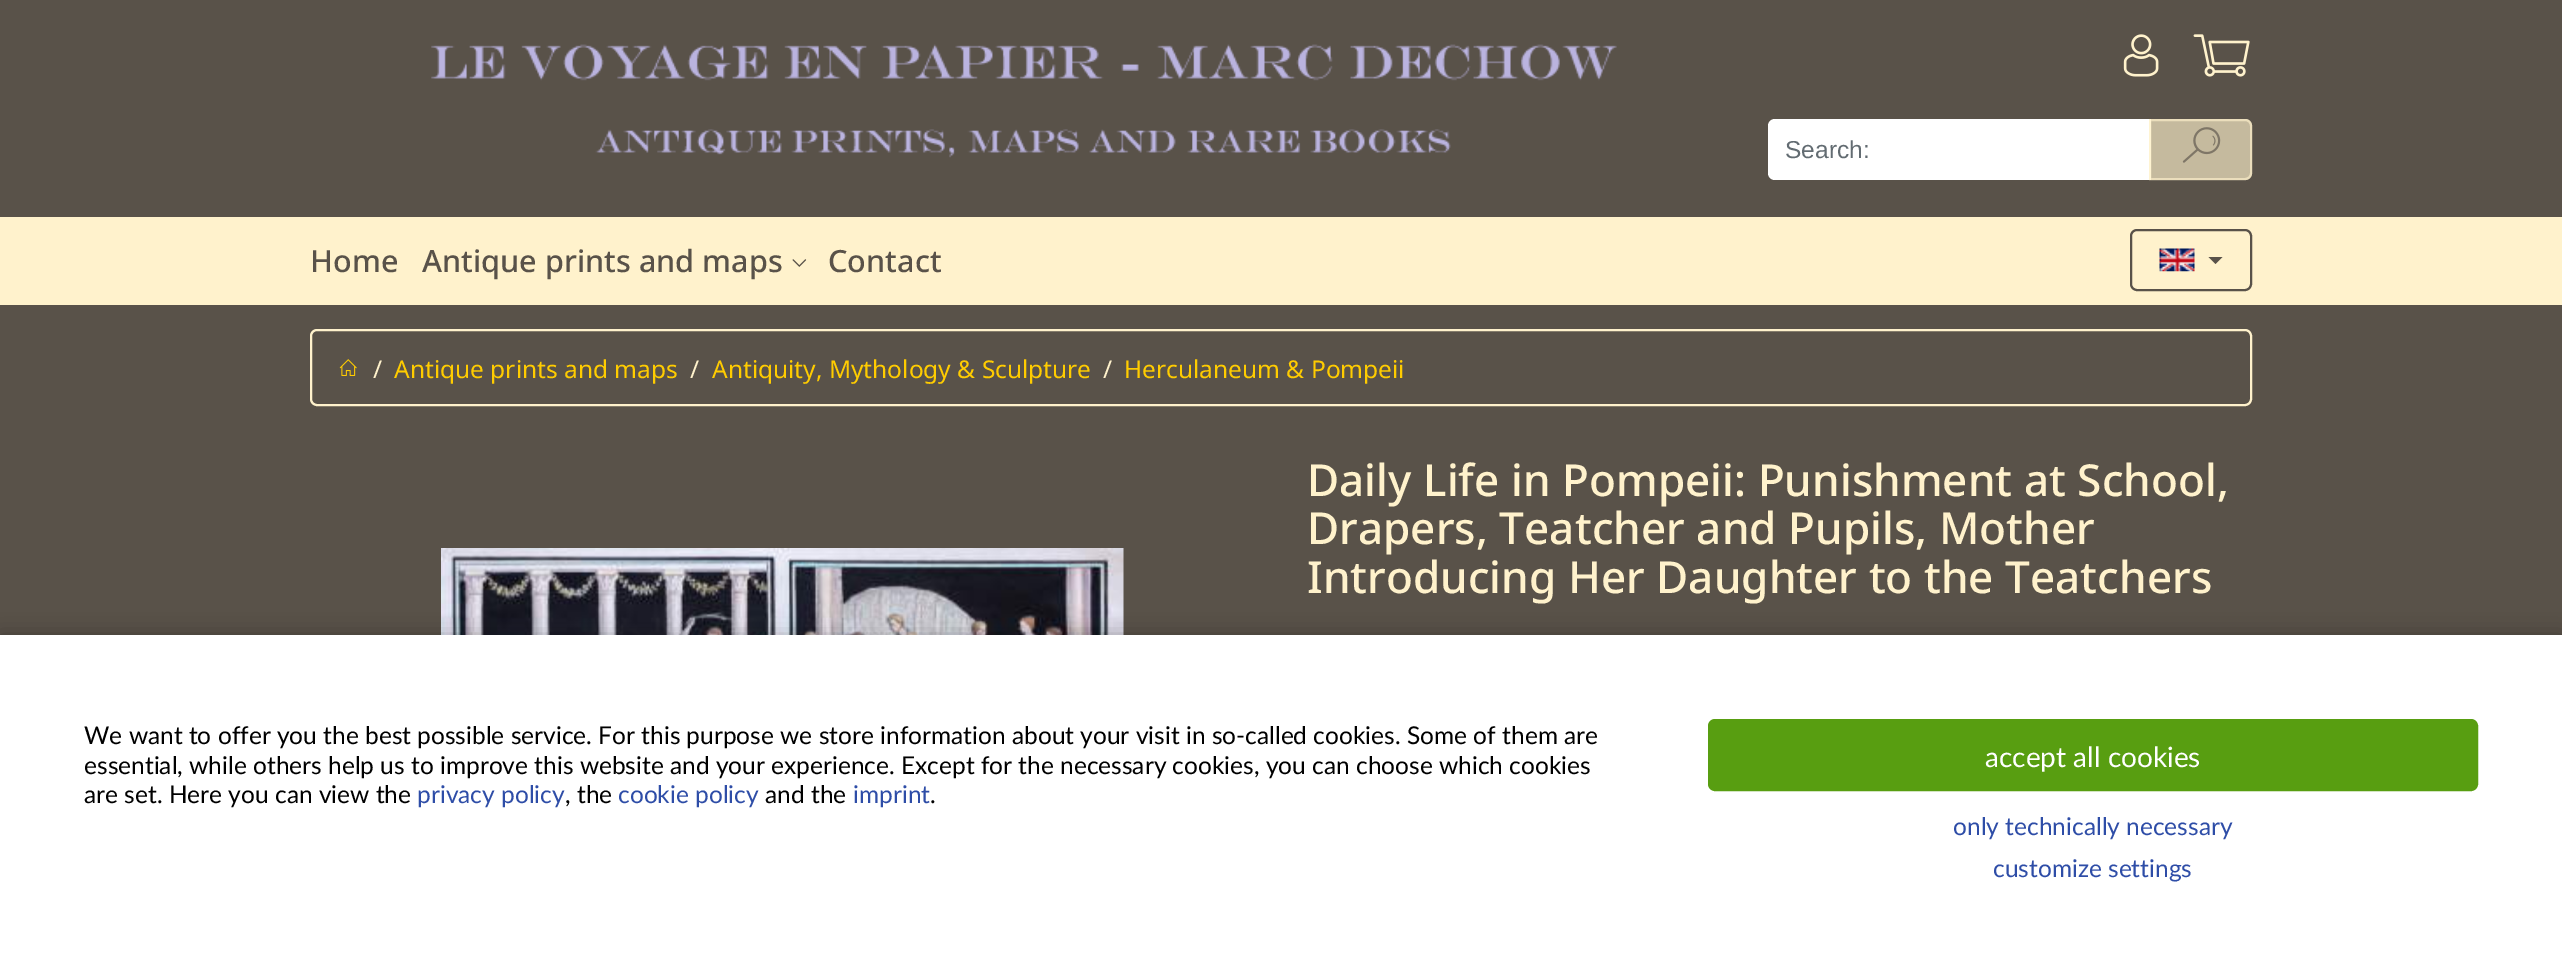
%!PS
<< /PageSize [2562 965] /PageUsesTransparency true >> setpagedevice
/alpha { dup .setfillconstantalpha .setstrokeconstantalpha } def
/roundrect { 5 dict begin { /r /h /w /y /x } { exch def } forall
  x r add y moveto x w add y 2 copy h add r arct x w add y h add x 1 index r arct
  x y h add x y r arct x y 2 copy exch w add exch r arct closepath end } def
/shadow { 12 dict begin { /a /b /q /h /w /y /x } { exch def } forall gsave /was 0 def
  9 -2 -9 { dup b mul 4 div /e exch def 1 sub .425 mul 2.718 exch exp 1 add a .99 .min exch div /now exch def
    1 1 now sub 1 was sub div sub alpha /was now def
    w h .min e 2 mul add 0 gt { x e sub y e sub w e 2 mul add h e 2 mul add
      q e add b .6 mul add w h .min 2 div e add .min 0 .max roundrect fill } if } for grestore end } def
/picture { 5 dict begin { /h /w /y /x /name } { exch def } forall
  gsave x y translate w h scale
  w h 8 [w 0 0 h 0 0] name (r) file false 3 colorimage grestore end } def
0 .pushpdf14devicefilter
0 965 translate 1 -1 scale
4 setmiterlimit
0.349 0.322 0.286 setrgbcolor
0 0 2562 965 rectfill
(img1.rgb) 431 44 1186 114 picture
(img2.rgb) 2123 34 36 43 picture
(img3.rgb) 2193 34 57 43 picture
1 setgray
newpath 1775 119 moveto 2151 119 lineto 2151 180 lineto 1775 180 lineto 1771 180 1768 177 1768 173 curveto 1768 126 lineto 1768 122 1771 119 1775 119 curveto closepath fill
/LiberationSans-Regular [24.5 0 0 -24.5 0 0] selectfont
0.388 0.424 0.447 setrgbcolor
1785 158 moveto (Search:) show
0.65 alpha
1 0.949 0.8 setrgbcolor
newpath 2149 119 moveto 2245 119 lineto 2249 119 2252 122 2252 126 curveto 2252 173 lineto 2252 177 2249 180 2245 180 curveto 2149 180 lineto closepath fill
2 setlinewidth
newpath 2150 120 moveto 2245 120 lineto 2248.5 120 2251 122.5 2251 126 curveto 2251 173 lineto 2251 176.5 2248.5 179 2245 179 curveto 2150 179 lineto closepath stroke
1 alpha
(img4.rgb) 2182 127 39 36 picture
0 217 2562 88 rectfill
/NotoSans-Medium [30.6 0 0 -30.6 0 0] selectfont
0.349 0.322 0.286 setrgbcolor
310 272 moveto (Home) show
422 272 moveto (Antique prints and maps) show
(img5.rgb) 792 259 15 8 picture
828 272 moveto (Contact) show
2131 230 120 60 6 roundrect stroke
(img6.rgb) 2159 248 36 24 picture
newpath 2208.5 257 moveto 2222.5 257 lineto 2215.5 264 lineto closepath fill
1 0.949 0.8 setrgbcolor
311 330 1940 75 6 roundrect stroke
(img7.rgb) 339 359 18 17 picture
/NotoSans-Regular [24.5 0 0 -24.5 0 0] selectfont
373 378 moveto (/) show
1 0.8 0 setrgbcolor
394 378 moveto (Antique prints and maps) show
1 0.949 0.8 setrgbcolor
690 378 moveto (/) show
1 0.8 0 setrgbcolor
712 378 moveto (Antiquity, Mythology & Sculpture) show
1 0.949 0.8 setrgbcolor
1103 378 moveto (/) show
1 0.8 0 setrgbcolor
1124 378 moveto (Herculaneum & Pompeii) show
(img8.rgb) 441 548 683 87 picture
/NotoSans-Medium [44.1 0 0 -44.1 0 0] selectfont
1 0.949 0.8 setrgbcolor
1307 496 moveto (Daily Life in Pompeii: Punishment at School,) show
1307 544 moveto (Drapers, Teatcher and Pupils, Mother) show
1307 593 moveto (Introducing Her Daughter to the Teatchers) show
0 setgray
0 635 2562 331 0 10.5 0.25 shadow
1 setgray
0 635 2562 330 rectfill
/Lato-Regular [24.5 0 0 -24.5 0 0] selectfont
0 setgray
84 744 moveto (We want to offer you the best possible service. For this purpose we store information about your visit in so-called cookies. Some of them are) show
84 774 moveto (essential, while others help us to improve this website and your experience. Except for the necessary cookies, you can choose which cookies) show
84 803 moveto (are set. Here you can view the) show
0.18 0.302 0.655 setrgbcolor
417 803 moveto (privacy policy) show
0 setgray
565 803 moveto (, the) show
0.18 0.302 0.655 setrgbcolor
618 803 moveto (cookie policy) show
0 setgray
765 803 moveto (and the) show
0.18 0.302 0.655 setrgbcolor
853 803 moveto (imprint) show
0 setgray
930 803 moveto (.) show
0.345 0.62 0.067 setrgbcolor
1709 720 768 70 6 roundrect gsave fill grestore
stroke
/Lato-Regular [28 0 0 -28 0 0] selectfont
1 setgray
1985 767 moveto (accept all cookies) show
/Lato-Regular [24.5 0 0 -24.5 0 0] selectfont
0.18 0.302 0.655 setrgbcolor
1953 835 moveto (only technically necessary) show
1993 877 moveto (customize settings) show
.poppdf14devicefilter showpage
